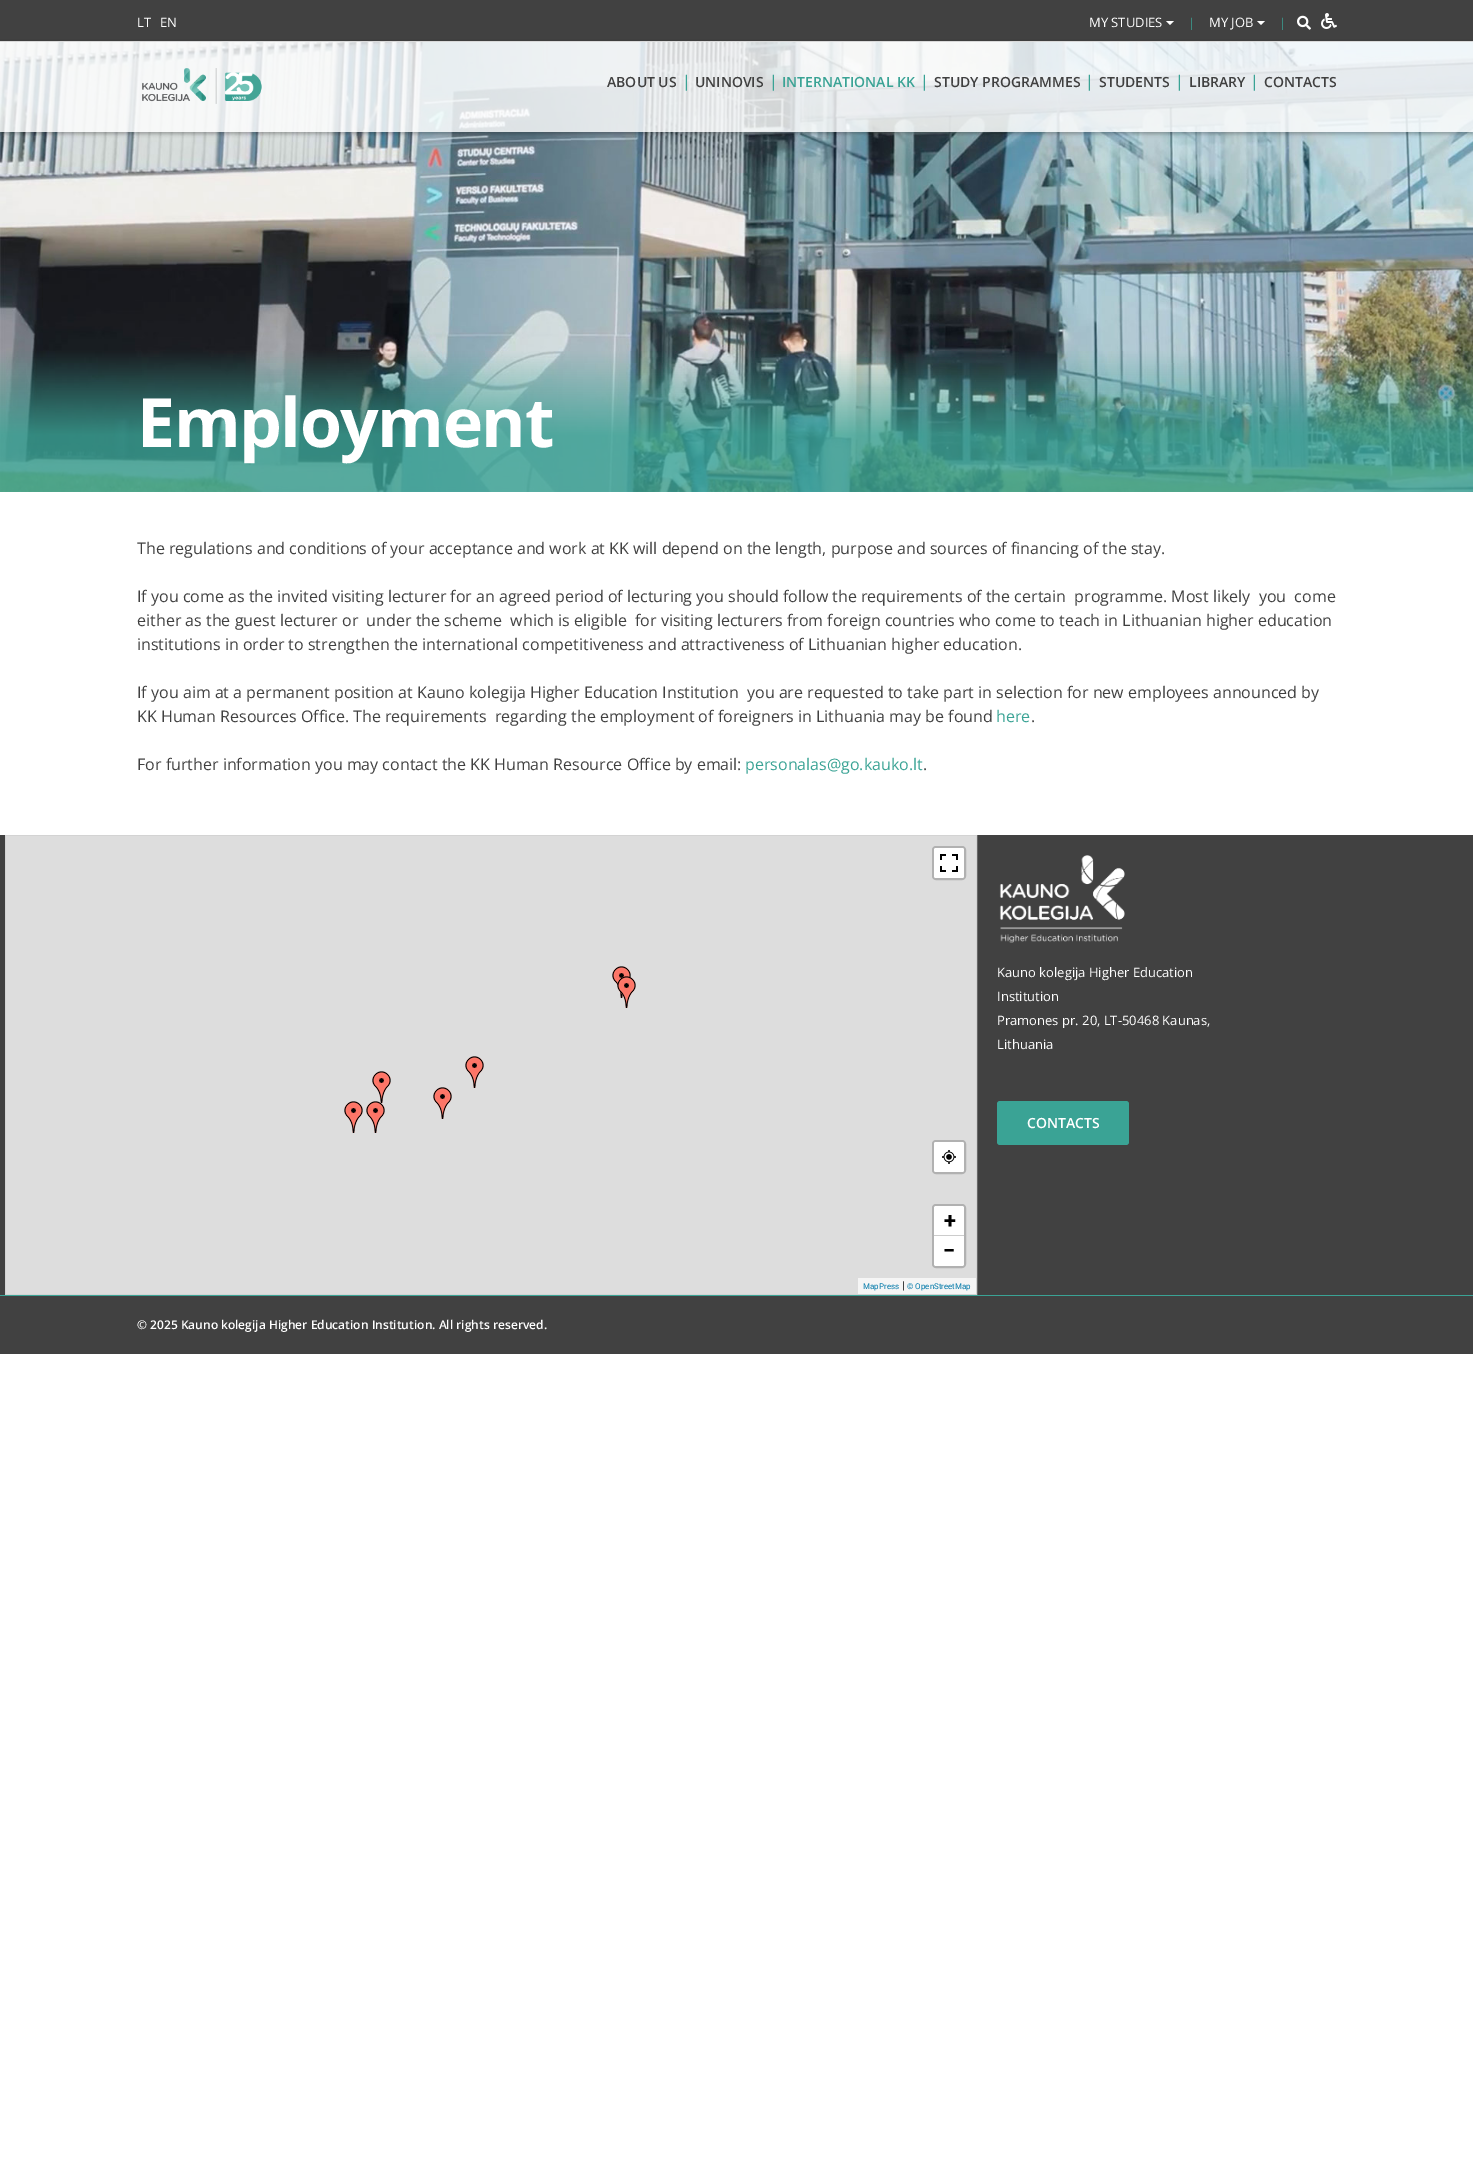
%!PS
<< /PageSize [1473 2157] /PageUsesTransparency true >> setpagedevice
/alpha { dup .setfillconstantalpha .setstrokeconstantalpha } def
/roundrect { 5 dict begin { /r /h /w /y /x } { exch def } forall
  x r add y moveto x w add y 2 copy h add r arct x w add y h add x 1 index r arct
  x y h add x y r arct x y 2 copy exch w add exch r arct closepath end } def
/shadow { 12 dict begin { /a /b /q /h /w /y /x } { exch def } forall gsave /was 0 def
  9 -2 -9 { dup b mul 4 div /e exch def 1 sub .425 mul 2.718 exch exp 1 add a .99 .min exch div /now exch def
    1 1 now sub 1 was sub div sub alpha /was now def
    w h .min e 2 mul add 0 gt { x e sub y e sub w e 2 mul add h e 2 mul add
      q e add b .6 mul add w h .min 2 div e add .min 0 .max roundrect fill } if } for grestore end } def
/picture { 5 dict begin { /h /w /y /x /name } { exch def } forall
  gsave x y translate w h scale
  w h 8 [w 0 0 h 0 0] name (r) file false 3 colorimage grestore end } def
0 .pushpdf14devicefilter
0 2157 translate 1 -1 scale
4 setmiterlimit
1 setgray
0 0 1473 2157 rectfill
0.255 setgray
0 0 1473 42 rectfill
/OpenSans-Regular [13 0 0 -13 0 0] selectfont
1 setgray
137 27 moveto (LT) show
160 27 moveto (EN) show
1089 27 moveto (MY STUDIES) show
newpath 1166 21 moveto 1174 21 lineto 1170 25 lineto closepath fill
/OpenSans-Regular [12 0 0 -12 0 0] selectfont
0.227 0.639 0.584 setrgbcolor
1188 27 moveto (|) show
/OpenSans-Regular [13 0 0 -13 0 0] selectfont
1 setgray
1209 27 moveto (MY JOB) show
newpath 1257 21 moveto 1265 21 lineto 1261 25 lineto closepath fill
/OpenSans-Regular [12 0 0 -12 0 0] selectfont
0.227 0.639 0.584 setrgbcolor
1279 27 moveto (|) show
(img1.rgb) 1297 15 14 15 picture
(img2.rgb) 1321 13 16 16 picture
(img4.rgb) 0 42 1473 450 picture
gsave
newpath 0 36 moveto 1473 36 lineto 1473 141 lineto 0 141 lineto closepath 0 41 moveto 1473 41 lineto 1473 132 lineto 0 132 lineto closepath eoclip newpath
0 setgray
0 43 1473 91 0 2 0.29 shadow
grestore
0.8 alpha
1 setgray
0 41 1473 91 rectfill
1 alpha
(img3.rgb) 142 68 120 36 picture
/OpenSans-SemiBold [14 0 0 -14 0 0] selectfont
0.251 setgray
607 87 moveto (ABOUT US) show
/OpenSans-Regular [16 0 0 -16 0 0] selectfont
0.227 0.639 0.584 setrgbcolor
682 87 moveto (|) show
/OpenSans-SemiBold [14 0 0 -14 0 0] selectfont
0.251 setgray
695 87 moveto (UNINOVIS) show
/OpenSans-Regular [16 0 0 -16 0 0] selectfont
0.227 0.639 0.584 setrgbcolor
769 87 moveto (|) show
/OpenSans-SemiBold [14 0 0 -14 0 0] selectfont
782 87 moveto (INTERNATIONAL KK) show
/OpenSans-Regular [16 0 0 -16 0 0] selectfont
920 87 moveto (|) show
/OpenSans-SemiBold [14 0 0 -14 0 0] selectfont
0.251 setgray
934 87 moveto (STUDY PROGRAMMES) show
/OpenSans-Regular [16 0 0 -16 0 0] selectfont
0.227 0.639 0.584 setrgbcolor
1085 87 moveto (|) show
/OpenSans-SemiBold [14 0 0 -14 0 0] selectfont
0.251 setgray
1099 87 moveto (STUDENTS) show
/OpenSans-Regular [16 0 0 -16 0 0] selectfont
0.227 0.639 0.584 setrgbcolor
1175 87 moveto (|) show
/OpenSans-SemiBold [14 0 0 -14 0 0] selectfont
0.251 setgray
1189 87 moveto (LIBRARY) show
/OpenSans-Regular [16 0 0 -16 0 0] selectfont
0.227 0.639 0.584 setrgbcolor
1250 87 moveto (|) show
/OpenSans-SemiBold [14 0 0 -14 0 0] selectfont
0.251 setgray
1264 87 moveto (CONTACTS) show
/OpenSans-Bold [68 0 0 -68 0 0] selectfont
1 setgray
137 447 moveto -1.5 0 (Employment) ashow
/OpenSans-Regular [16 0 0 -16 0 0] selectfont
0.251 setgray
137 554 moveto (The regulations and conditions of your acceptance and work at KK will depend on the length, purpose and sources of financing of the stay.) show
137 602 moveto (If you come as the invited visiting lecturer for an agreed period of lecturing you should follow the requirements of the certain  programme. Most likely  you  come) show
137 626 moveto (either as the guest lecturer or  under the scheme  which is eligible  for visiting lecturers from foreign countries who come to teach in Lithuanian higher education) show
137 650 moveto (institutions in order to strengthen the international competitiveness and attractiveness of Lithuanian higher education.) show
137 698 moveto (If you aim at a permanent position at Kauno kolegija Higher Education Institution  you are requested to take part in selection for new employees announced by) show
137 722 moveto (KK Human Resources Office. The requirements  regarding the employment of foreigners in Lithuania may be found) show
0.227 0.639 0.584 setrgbcolor
996 722 moveto (here) show
0.251 setgray
1031 722 moveto (.) show
137 770 moveto (For further information you may contact the KK Human Resource Office by email:) show
0.227 0.639 0.584 setrgbcolor
745 770 moveto (personalas@go.kauko.lt) show
0.251 setgray
923 770 moveto (.) show
0.255 setgray
0 835 1473 460 rectfill
(img5.rgb) 999 855 126 88 picture
/OpenSans-Regular [13 0 0 -13 0 0] selectfont
1 setgray
997 977 moveto (Kauno kolegija Higher Education) show
997 1001 moveto (Institution) show
997 1025 moveto (Pramones pr. 20, LT-50468 Kaunas,) show
997 1049 moveto (Lithuania) show
0.227 0.639 0.584 setrgbcolor
997 1101 132 44 3 roundrect fill
/OpenSans-SemiBold [14 0 0 -14 0 0] selectfont
1 setgray
1027 1128 moveto (CONTACTS) show
0.827 setgray
5.5 835.5 971 459 rectstroke
0.867 setgray
6 836 970 458 rectfill
0.694 setgray
2 setlinewidth
933 847 32 32 3 roundrect stroke
1 setgray
934 848 30 30 2 roundrect fill
(img6.rgb) 940 854 18 18 picture
0.694 setgray
933 1141 32 32 3 roundrect stroke
1 setgray
934 1142 30 30 2 roundrect fill
(img7.rgb) 942 1150 14 14 picture
(img8.rgb) 612 966 19 32 picture
(img9.rgb) 617 976 19 32 picture
(img8.rgb) 344 1101 19 32 picture
(img8.rgb) 372 1071 19 32 picture
(img8.rgb) 433 1087 19 32 picture
(img8.rgb) 465 1056 19 32 picture
(img10.rgb) 366 1101 19 32 picture
0.694 setgray
933 1205 32 62 3 roundrect stroke
1 setgray
newpath 936 1206 moveto 962 1206 lineto 963 1206 964 1207 964 1208 curveto 964 1236 lineto 934 1236 lineto 934 1208 lineto 934 1207 935 1206 936 1206 curveto closepath fill
0.8 setgray
934 1235 30 1 rectfill
/Roboto-Bold [22 0 0 -22 0 0] selectfont
0 setgray
944 1228 moveto (+) show
1 setgray
newpath 934 1236 moveto 964 1236 lineto 964 1264 lineto 964 1265 963 1266 962 1266 curveto 936 1266 lineto 935 1266 934 1265 934 1264 curveto closepath fill
0 setgray
943 1258 moveto (−) show
0.961 setgray
858 1278 118 16 rectfill
/Roboto-Regular [8 0 0 -8 0 0] selectfont
0 0.471 0.659 setrgbcolor
863 1289 moveto (MapPress) show
/Roboto-Regular [11 0 0 -11 0 0] selectfont
0 setgray
902 1289 moveto (|) show
/Roboto-Regular [8 0 0 -8 0 0] selectfont
0 0.471 0.659 setrgbcolor
907 1289 moveto (© OpenStreetMap) show
0.255 setgray
0 1296 1473 58 rectfill
0.227 0.639 0.584 setrgbcolor
0 1295 1473 1 rectfill
/OpenSans-SemiBold [12 0 0 -12 0 0] selectfont
1 setgray
137 1329 moveto (© 2025 Kauno kolegija Higher Education Institution. All rights reserved.) show
.poppdf14devicefilter showpage
